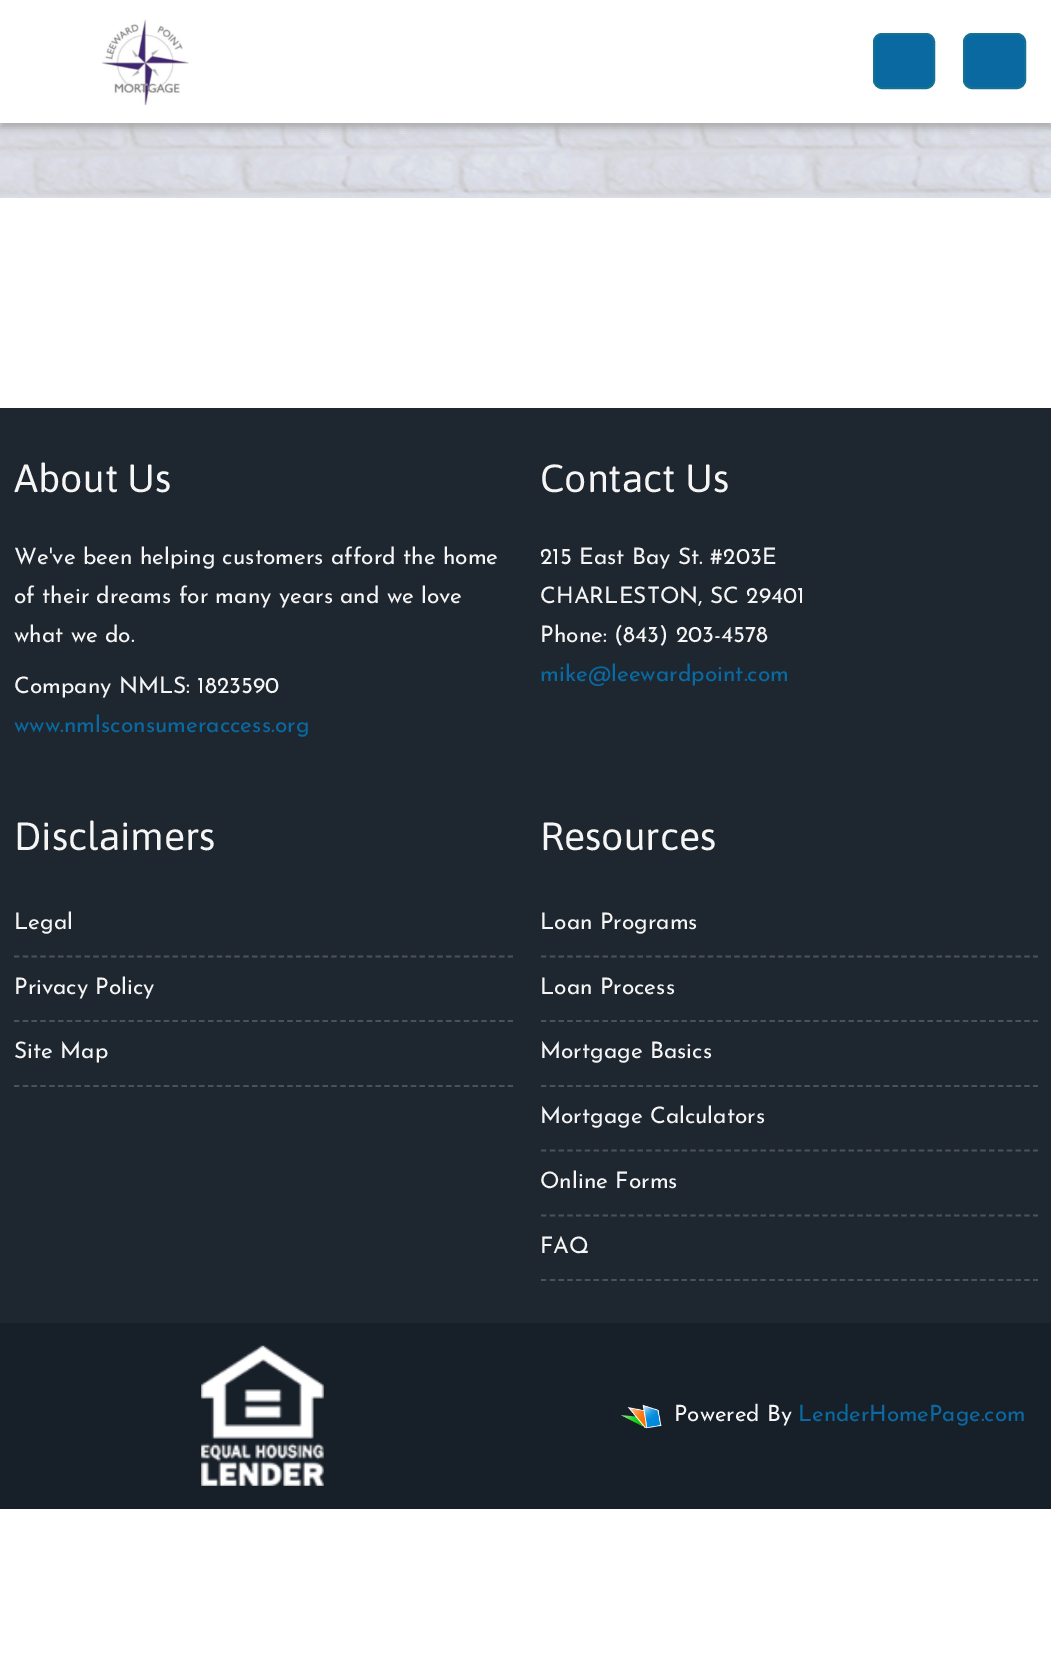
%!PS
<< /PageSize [1051 1661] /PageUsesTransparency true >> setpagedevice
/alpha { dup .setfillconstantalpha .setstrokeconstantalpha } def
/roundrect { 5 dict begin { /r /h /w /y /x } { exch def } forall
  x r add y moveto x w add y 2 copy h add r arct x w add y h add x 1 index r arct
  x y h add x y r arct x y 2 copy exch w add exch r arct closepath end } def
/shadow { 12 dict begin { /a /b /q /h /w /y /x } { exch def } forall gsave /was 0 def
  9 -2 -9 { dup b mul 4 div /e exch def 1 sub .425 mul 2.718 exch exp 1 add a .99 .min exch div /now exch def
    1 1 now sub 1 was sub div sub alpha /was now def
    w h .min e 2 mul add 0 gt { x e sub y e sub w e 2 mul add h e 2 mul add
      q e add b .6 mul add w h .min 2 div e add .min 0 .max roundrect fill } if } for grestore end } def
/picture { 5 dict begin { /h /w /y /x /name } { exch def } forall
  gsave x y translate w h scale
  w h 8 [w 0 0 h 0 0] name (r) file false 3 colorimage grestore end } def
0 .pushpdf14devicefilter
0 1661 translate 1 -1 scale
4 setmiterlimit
1 setgray
0 0 1051 1661 rectfill
(img2.rgb) 0 123 1051 75 picture
0.667 setgray
0 5 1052 123 0 4 1 shadow
1 setgray
0 0 1051 123 rectfill
(img1.rgb) 101 19 88 86 picture
0.035 0.412 0.627 setrgbcolor
874 34 60 54 8 roundrect gsave fill grestore
0.078 0.443 0.58 setrgbcolor
2 setlinewidth
stroke
0.035 0.412 0.627 setrgbcolor
964 34 61 54 8 roundrect gsave fill grestore
0.078 0.443 0.58 setrgbcolor
stroke
0.118 0.149 0.184 setrgbcolor
0 408 1051 915 rectfill
/Asap-Regular [39.25 0 0 -39.25 0 0] selectfont
0.965 0.961 0.965 setrgbcolor
14 492 moveto (About Us) show
/JosefinSans-Regular [22.75 0 0 -22.75 0 0] selectfont
14 564 moveto (We've been helping customers afford the home) show
14 603 moveto (of their dreams for many years and we love) show
14 642 moveto (what we do.) show
14 693 moveto (Company NMLS: 1823590) show
0.035 0.412 0.627 setrgbcolor
14 732 moveto (www.nmlsconsumeraccess.org) show
/Asap-Regular [39.25 0 0 -39.25 0 0] selectfont
0.965 0.961 0.965 setrgbcolor
540 492 moveto (Contact Us) show
/JosefinSans-Regular [22.75 0 0 -22.75 0 0] selectfont
540 564 moveto (215 East Bay St. #203E) show
540 603 moveto (CHARLESTON, SC 29401) show
540 642 moveto (Phone: \(843\) 203-4578) show
0.035 0.412 0.627 setrgbcolor
540 681 moveto (mike@leewardpoint.com) show
/Asap-Regular [39.25 0 0 -39.25 0 0] selectfont
0.965 0.961 0.965 setrgbcolor
14 850 moveto (Disclaimers) show
0.294 0.318 0.345 setrgbcolor
1.8 setlinewidth
[5.25 3.57] 0 setdash
newpath 14 956.5 moveto 513 956.5 lineto stroke
/JosefinSans-Regular [22.75 0 0 -22.75 0 0] selectfont
0.965 0.961 0.965 setrgbcolor
14 929 moveto (Legal) show
0.294 0.318 0.345 setrgbcolor
newpath 14 1021 moveto 513 1021 lineto stroke
0.965 0.961 0.965 setrgbcolor
14 994 moveto (Privacy Policy) show
0.294 0.318 0.345 setrgbcolor
newpath 14 1086 moveto 513 1086 lineto stroke
0.965 0.961 0.965 setrgbcolor
14 1058 moveto (Site Map) show
/Asap-Regular [39.25 0 0 -39.25 0 0] selectfont
540 850 moveto (Resources) show
0.294 0.318 0.345 setrgbcolor
[5.25 3.54] 0 setdash
newpath 541 956.5 moveto 1038 956.5 lineto stroke
/JosefinSans-Regular [22.75 0 0 -22.75 0 0] selectfont
0.965 0.961 0.965 setrgbcolor
540 929 moveto (Loan Programs) show
0.294 0.318 0.345 setrgbcolor
newpath 541 1021 moveto 1038 1021 lineto stroke
0.965 0.961 0.965 setrgbcolor
540 994 moveto (Loan Process) show
0.294 0.318 0.345 setrgbcolor
newpath 541 1086 moveto 1038 1086 lineto stroke
0.965 0.961 0.965 setrgbcolor
540 1058 moveto (Mortgage Basics) show
0.294 0.318 0.345 setrgbcolor
newpath 541 1150.5 moveto 1038 1150.5 lineto stroke
0.965 0.961 0.965 setrgbcolor
540 1123 moveto (Mortgage Calculators) show
0.294 0.318 0.345 setrgbcolor
newpath 541 1215.5 moveto 1038 1215.5 lineto stroke
0.965 0.961 0.965 setrgbcolor
540 1188 moveto (Online Forms) show
0.294 0.318 0.345 setrgbcolor
newpath 541 1280 moveto 1038 1280 lineto stroke
0.965 0.961 0.965 setrgbcolor
540 1253 moveto (FAQ) show
0.09 0.122 0.157 setrgbcolor
0 1323 1051 186 rectfill
(img3.rgb) 201 1345 123 141 picture
(img4.rgb) 620 1404 46 25 picture
/JosefinSans-Regular [22.4 0 0 -22.4 0 0] selectfont
0.965 0.961 0.965 setrgbcolor
674 1421 moveto (Powered By) show
0.035 0.412 0.627 setrgbcolor
798 1421 moveto (LenderHomePage.com) show
.poppdf14devicefilter showpage
